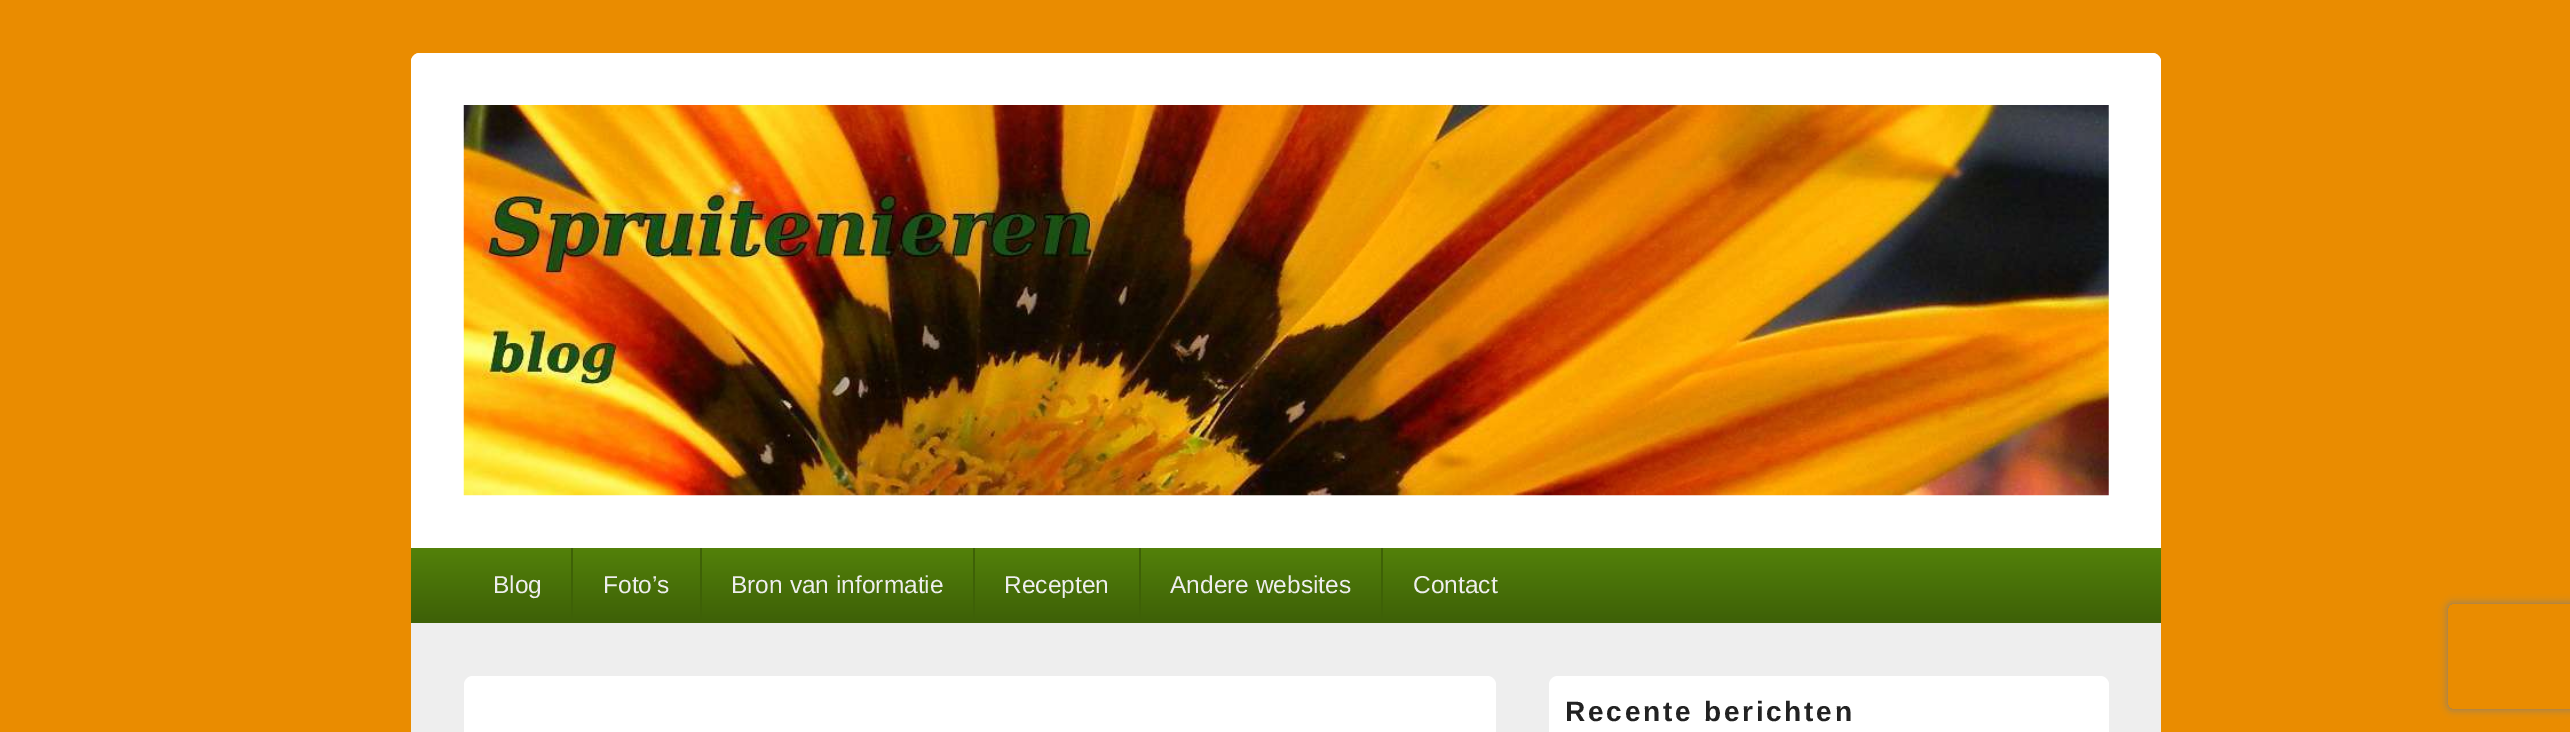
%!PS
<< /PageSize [2570 732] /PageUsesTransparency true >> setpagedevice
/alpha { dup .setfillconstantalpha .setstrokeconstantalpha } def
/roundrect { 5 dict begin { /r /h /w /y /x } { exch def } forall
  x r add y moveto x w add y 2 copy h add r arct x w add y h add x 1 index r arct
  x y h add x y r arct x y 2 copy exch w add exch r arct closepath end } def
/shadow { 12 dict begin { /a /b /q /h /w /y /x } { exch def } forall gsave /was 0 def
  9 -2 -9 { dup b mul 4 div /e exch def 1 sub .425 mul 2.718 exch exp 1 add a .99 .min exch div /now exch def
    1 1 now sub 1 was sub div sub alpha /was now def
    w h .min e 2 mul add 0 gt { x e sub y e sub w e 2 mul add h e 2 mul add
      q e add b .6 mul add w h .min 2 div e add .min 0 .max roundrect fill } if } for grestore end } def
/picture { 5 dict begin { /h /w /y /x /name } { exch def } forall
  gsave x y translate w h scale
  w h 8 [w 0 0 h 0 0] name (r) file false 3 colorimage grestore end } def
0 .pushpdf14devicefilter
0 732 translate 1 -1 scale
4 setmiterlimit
0.918 0.549 0 setrgbcolor
0 0 2570 732 rectfill
0.933 setgray
411 53 1750 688 9 roundrect fill
1 setgray
newpath 420 53 moveto 2152 53 lineto 2157 53 2161 57 2161 62 curveto 2161 623 lineto 411 623 lineto 411 62 lineto 411 57 415 53 420 53 curveto closepath fill
(img1.rgb) 463 105 1646 391 picture
gsave newpath 411 548 moveto 2161 548 lineto 2161 621 lineto 411 621 lineto closepath clip newpath
<< /ShadingType 2 /ColorSpace /DeviceRGB /Coords [1286 548 1286 621] /Extend [true true] /Function << /FunctionType 2 /Domain [0 1] /C0 [0.325 0.506 0.039] /C1 [0.243 0.38 0.027] /N 1 >> >> shfill grestore
0.243 0.38 0.027 setrgbcolor
411 621 1750 2 rectfill
/LiberationSans-Regular [24.5 0 0 -24.5 0 0] selectfont
0.933 setgray
493 593 moveto (Blog) show
0.243 0.38 0.027 setrgbcolor
571 548 2 73 rectfill
0.933 setgray
603 593 moveto (Foto’s) show
0.243 0.38 0.027 setrgbcolor
700 548 2 73 rectfill
0.933 setgray
731 593 moveto (Bron van informatie) show
0.243 0.38 0.027 setrgbcolor
973 548 2 73 rectfill
0.933 setgray
1004 593 moveto (Recepten) show
0.243 0.38 0.027 setrgbcolor
1139 548 2 73 rectfill
0.933 setgray
1170 593 moveto (Andere websites) show
0.243 0.38 0.027 setrgbcolor
1381 548 2 73 rectfill
0.933 setgray
1413 593 moveto (Contact) show
1 setgray
464 676 1032 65 9 roundrect fill
1549 676 560 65 9 roundrect fill
/LiberationSans-Bold [28 0 0 -28 0 0] selectfont
0.133 setgray
1565 721 moveto 2.75 0 (Recente berichten) ashow
gsave
newpath 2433 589 moveto 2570 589 lineto 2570 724 lineto 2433 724 lineto closepath 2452 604 moveto 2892 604 lineto 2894 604 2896 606 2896 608 curveto 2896 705 lineto 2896 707 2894 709 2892 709 curveto 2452 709 lineto 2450 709 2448 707 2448 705 curveto 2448 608 lineto 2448 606 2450 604 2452 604 curveto closepath eoclip newpath
0.502 setgray
2448 604 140 105 4 4.5 1 shadow
grestore
.poppdf14devicefilter showpage
